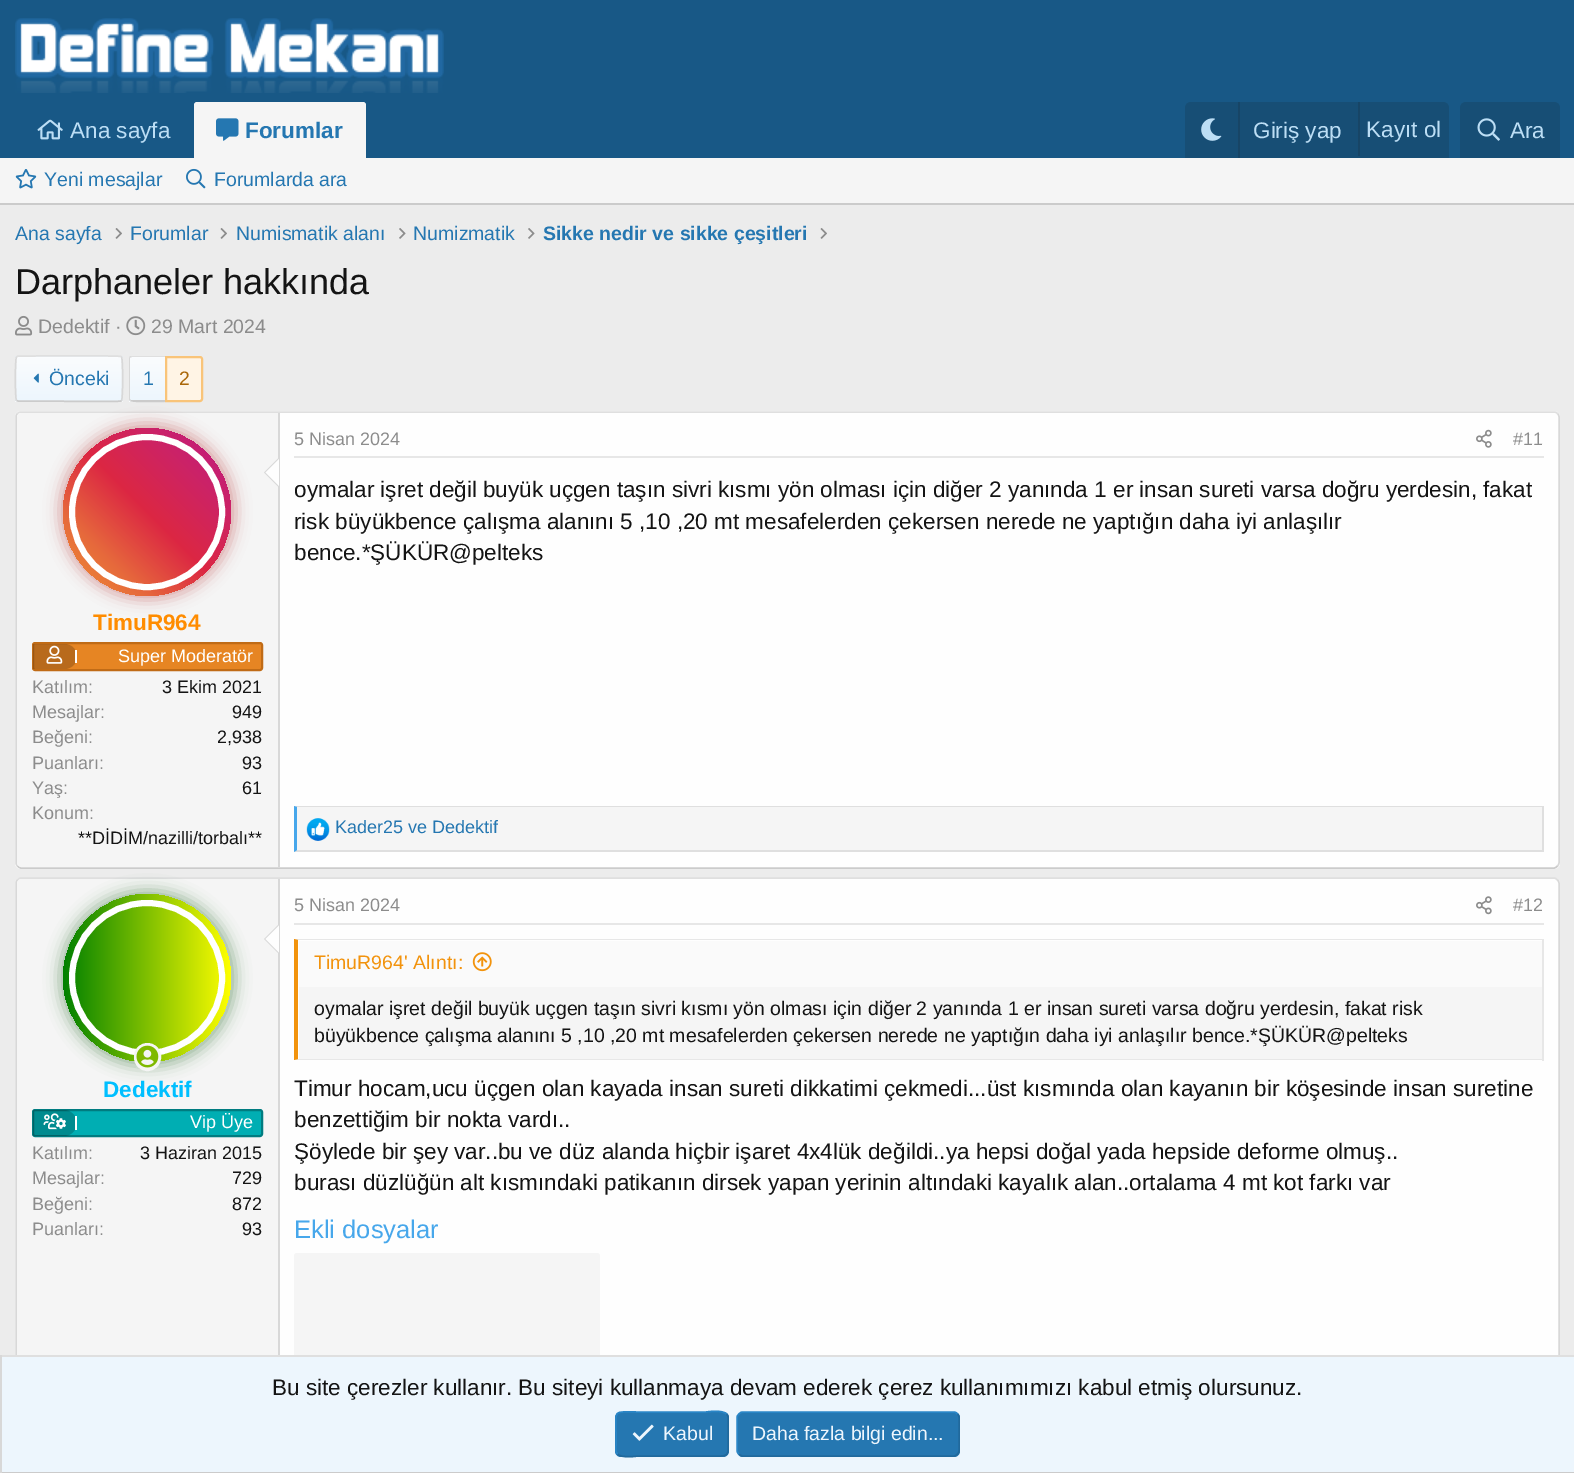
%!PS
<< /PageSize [1574 1473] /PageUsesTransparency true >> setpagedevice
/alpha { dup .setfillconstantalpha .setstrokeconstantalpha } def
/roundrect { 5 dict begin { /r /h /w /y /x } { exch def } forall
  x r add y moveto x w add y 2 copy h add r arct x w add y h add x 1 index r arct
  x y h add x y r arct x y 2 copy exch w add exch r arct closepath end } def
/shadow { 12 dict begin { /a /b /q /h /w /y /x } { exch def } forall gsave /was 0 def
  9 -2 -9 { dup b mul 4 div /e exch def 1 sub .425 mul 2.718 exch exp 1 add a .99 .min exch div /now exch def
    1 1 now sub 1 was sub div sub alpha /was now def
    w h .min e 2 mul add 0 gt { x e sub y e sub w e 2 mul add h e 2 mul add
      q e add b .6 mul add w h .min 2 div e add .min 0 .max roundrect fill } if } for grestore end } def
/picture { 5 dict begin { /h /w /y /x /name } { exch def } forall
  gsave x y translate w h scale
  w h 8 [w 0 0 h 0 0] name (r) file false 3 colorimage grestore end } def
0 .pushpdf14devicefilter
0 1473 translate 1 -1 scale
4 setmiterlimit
0.925 setgray
0 0 1574 1473 rectfill
0.094 0.345 0.525 setrgbcolor
0 0 1574 158 rectfill
(img1.rgb) 15 18 429 75 picture
(img2.rgb) 37 119 26 21 picture
/LiberationSans-Regular [22.5 0 0 -22.5 0 0] selectfont
0.737 0.871 0.961 setrgbcolor
70 138 moveto (Ana sayfa) show
0.961 setgray
newpath 197 102 moveto 363 102 lineto 364.5 102 366 103.5 366 105 curveto 366 158 lineto 194 158 lineto 194 105 lineto 194 103.5 195.5 102 197 102 curveto closepath fill
(img3.rgb) 216 118 23 23 picture
/LiberationSans-Bold [22.5 0 0 -22.5 0 0] selectfont
0.145 0.467 0.694 setrgbcolor
245 138 moveto (Forumlar) show
0.09 0.306 0.459 setrgbcolor
newpath 1191 102 moveto 1443 102 lineto 1446.5 102 1449 104.5 1449 108 curveto 1449 158 lineto 1185 158 lineto 1185 108 lineto 1185 104.5 1187.5 102 1191 102 curveto closepath fill
(img4.rgb) 1201 118 21 23 picture
0.09 0.271 0.4 setrgbcolor
1238 102 2 56 rectfill
/LiberationSans-Regular [22.5 0 0 -22.5 0 0] selectfont
0.737 0.871 0.961 setrgbcolor
1253 138 moveto (Giriş yap) show
0.09 0.271 0.4 setrgbcolor
1358 102 2 54 rectfill
0.737 0.871 0.961 setrgbcolor
1366 137 moveto (Kayıt ol) show
0.09 0.306 0.459 setrgbcolor
newpath 1466 102 moveto 1554 102 lineto 1557.5 102 1560 104.5 1560 108 curveto 1560 158 lineto 1460 158 lineto 1460 108 lineto 1460 104.5 1462.5 102 1466 102 curveto closepath fill
(img5.rgb) 1477 118 23 23 picture
0.737 0.871 0.961 setrgbcolor
1510 138 moveto (Ara) show
0.961 setgray
0 158 1574 45 rectfill
0.796 setgray
0 203 1574 2 rectfill
(img6.rgb) 15 169 22 20 picture
/LiberationSans-Regular [19.5 0 0 -19.5 0 0] selectfont
0.145 0.467 0.694 setrgbcolor
44 186 moveto (Yeni mesajlar) show
(img7.rgb) 186 168 20 21 picture
214 186 moveto (Forumlarda ara) show
15 240 moveto (Ana sayfa) show
(img8.rgb) 115 228 7 11 picture
130 240 moveto (Forumlar) show
(img8.rgb) 220 228 7 11 picture
236 240 moveto (Numismatik alanı) show
(img9.rgb) 399 228 7 11 picture
413 240 moveto (Numizmatik) show
(img9.rgb) 528 228 7 11 picture
/LiberationSans-Bold [19.5 0 0 -19.5 0 0] selectfont
543 240 moveto (Sikke nedir ve sikke çeşitleri) show
(img8.rgb) 820 228 7 11 picture
/LiberationSans-Regular [36 0 0 -36 0 0] selectfont
0.078 setgray
15 294 moveto (Darphaneler hakkında) show
(img10.rgb) 15 315 18 21 picture
/LiberationSans-Regular [19.5 0 0 -19.5 0 0] selectfont
0.549 setgray
38 333 moveto (Dedektif ·) show
(img11.rgb) 126 316 20 20 picture
151 333 moveto (29 Mart 2024) show
gsave
15 356 108 46 3 roundrect clip newpath
gsave newpath 15 356 moveto 123 356 lineto 123 357 lineto 15 357 lineto closepath clip newpath
<< /ShadingType 2 /ColorSpace /DeviceRGB /Coords [69 357 69 314] /Extend [true true] /Function << /FunctionType 2 /Domain [0 1] /C0 [0.929 0.965 0.992] /C1 [0.98 0.988 0.996] /N 1 >> >> shfill grestore
gsave newpath 15 357 moveto 123 357 lineto 123 401 lineto 15 401 lineto closepath clip newpath
<< /ShadingType 2 /ColorSpace /DeviceRGB /Coords [69 401 69 357] /Extend [true true] /Function << /FunctionType 2 /Domain [0 1] /C0 [0.929 0.965 0.992] /C1 [0.98 0.988 0.996] /N 1 >> >> shfill grestore
gsave newpath 15 401 moveto 123 401 lineto 123 402 lineto 15 402 lineto closepath clip newpath
<< /ShadingType 2 /ColorSpace /DeviceRGB /Coords [69 444 69 401] /Extend [true true] /Function << /FunctionType 2 /Domain [0 1] /C0 [0.929 0.965 0.992] /C1 [0.98 0.988 0.996] /N 1 >> >> shfill grestore
grestore
0.875 setgray
1.5 setlinewidth
newpath 16.5 357 moveto 18 356 lineto 35 356 lineto 43.5 356 119.5 355.5 121 356.5 curveto 121.5 357 lineto stroke
0.847 setgray
newpath 121.5 357 moveto 123 358 123 399.5 121.5 400.5 curveto stroke
0.796 setgray
newpath 121.5 400.5 moveto 121 401 lineto 119.5 402 43.5 401 35 401 curveto 18 401 lineto 16.5 400.5 lineto stroke
0.847 setgray
newpath 16.5 400.5 moveto 15 399.5 15 358 16.5 357 curveto stroke
(img12.rgb) 33 373 6 10 picture
0.145 0.467 0.694 setrgbcolor
49 385 moveto (Önceki) show
gsave newpath 129 357 moveto 165 357 lineto 165 401 lineto 129 401 lineto closepath clip newpath
<< /ShadingType 2 /ColorSpace /DeviceRGB /Coords [148 401 148 357] /Extend [true true] /Function << /FunctionType 2 /Domain [0 1] /C0 [0.929 0.965 0.992] /C1 [0.98 0.988 0.996] /N 1 >> >> shfill grestore
gsave
newpath 132 356 moveto 165 356 lineto 165 402 lineto 132 402 lineto 130.5 402 129 400.5 129 399 curveto 129 359 lineto 129 357.5 130.5 356 132 356 curveto closepath clip newpath
gsave newpath 129 401 moveto 136 401 lineto 136 402 lineto 129 402 lineto closepath clip newpath
<< /ShadingType 2 /ColorSpace /DeviceRGB /Coords [148 444 148 401] /Extend [true true] /Function << /FunctionType 2 /Domain [0 1] /C0 [0.929 0.965 0.992] /C1 [0.98 0.988 0.996] /N 1 >> >> shfill grestore
grestore
0.875 setgray
newpath 132 357 moveto 131 357.5 lineto 130 356.5 lineto 130 356 lineto 165 356 lineto 165 357 lineto closepath fill
0.796 setgray
newpath 165 402 moveto 161 402 132 403 130 401 curveto 131 400 lineto 165 400 lineto closepath fill
0.847 setgray
newpath 129 358 moveto 129 400 lineto 130 401 lineto 131 400 lineto 130 399 lineto 130 358 lineto 131 357 lineto 130 356 lineto closepath fill
0.145 0.467 0.694 setrgbcolor
143 385 moveto (1) show
1 0.957 0.898 setrgbcolor
newpath 166 357 moveto 200 357 lineto 201 357 202 358 202 359 curveto 202 399 lineto 202 400 201 401 200 401 curveto 166 401 lineto closepath gsave fill grestore
0.976 0.769 0.475 setrgbcolor
2 setlinewidth
stroke
0.667 0.404 0.035 setrgbcolor
179 385 moveto (2) show
0.996 setgray
15 411 1545 458 6 roundrect fill
0.875 setgray
1.5 setlinewidth
newpath 17.5 413.5 moveto 18.5 412.5 19.5 412 21 412 curveto 1554 412 lineto 1555.5 412 1556.5 412.5 1557.5 413.5 curveto stroke
0.847 setgray
newpath 1557.5 413.5 moveto 1558.5 414.5 1559 415.5 1559 417 curveto 1559 862.5 lineto 1559 864 1558.5 865 1557.5 866 curveto stroke
0.796 setgray
newpath 1557.5 866 moveto 1556.5 867 1555.5 868 1554 868 curveto 21 868 lineto 19.5 868 18.5 867 17.5 866 curveto stroke
0.847 setgray
newpath 17.5 866 moveto 16.5 865 16 864 16 862.5 curveto 16 417 lineto 16 415.5 16.5 414.5 17.5 413.5 curveto stroke
0.961 setgray
newpath 22 413 moveto 279 413 lineto 279 867 lineto 22 867 lineto 19 867 17 865 17 862 curveto 17 418 lineto 17 415 19 413 22 413 curveto closepath fill
0.847 setgray
278 413 2 454 rectfill
0.698 0.133 0.133 setrgbcolor
59 423 177 177 88.5 7.5 0.38 shadow
gsave newpath 147 512 84 0 360 arc closepath clip newpath
<< /ShadingType 2 /ColorSpace /DeviceRGB /Coords [63 596 231 428] /Extend [true true] /Function << /FunctionType 3 /Domain [0 1] /Functions [<< /FunctionType 2 /Domain [0 1] /C0 [0.941 0.58 0.2] /C1 [0.902 0.408 0.235] /N 1 >> << /FunctionType 2 /Domain [0 1] /C0 [0.902 0.408 0.235] /C1 [0.863 0.153 0.263] /N 1 >> << /FunctionType 2 /Domain [0 1] /C0 [0.863 0.153 0.263] /C1 [0.8 0.137 0.4] /N 1 >> << /FunctionType 2 /Domain [0 1] /C0 [0.8 0.137 0.4] /C1 [0.737 0.094 0.533] /N 1 >>] /Bounds [0.25 0.5 0.75] /Encode [0 1 0 1 0 1 0 1] >> >> shfill grestore
1 setgray
6 setlinewidth
newpath 147 512 75 0 360 arc closepath stroke
0.847 setgray
newpath 279 457.5 moveto 279 487.5 lineto 264 472.5 lineto closepath fill
0.996 setgray
newpath 279 459 moveto 279 486 lineto 265.5 472.5 lineto closepath fill
/LiberationSans-Bold [22.5 0 0 -22.5 0 0] selectfont
1 0.549 0 setrgbcolor
93 630 moveto (TimuR964) show
0.902 0.522 0.137 setrgbcolor
33 643 229 27 2 roundrect gsave fill grestore
0.753 0.42 0.086 setrgbcolor
2 setlinewidth
stroke
0.2 alpha
0 setgray
newpath 33 644 moveto 64.5 644 lineto 71.5 644 77 649.5 77 656.5 curveto 77 663.5 71.5 669 64.5 669 curveto 33 669 lineto closepath fill
1 alpha
1 setgray
75 650 2 13 rectfill
(img13.rgb) 46 645 17 19 picture
/LiberationSans-Regular [18 0 0 -18 0 0] selectfont
118 662 moveto (Super Moderatör) show
0.549 setgray
32 693 moveto (Katılım:) show
0.078 setgray
162 693 moveto (3 Ekim 2021) show
0.549 setgray
32 718 moveto (Mesajlar:) show
0.078 setgray
232 718 moveto (949) show
0.549 setgray
32 743 moveto (Beğeni:) show
0.078 setgray
217 743 moveto (2,938) show
0.549 setgray
32 769 moveto (Puanları:) show
0.078 setgray
242 769 moveto (93) show
0.549 setgray
32 794 moveto (Yaş:) show
0.078 setgray
242 794 moveto (61) show
0.549 setgray
32 819 moveto (Konum:) show
0.078 setgray
78 844 moveto (**DİDİM/nazilli/torbalı**) show
0.906 setgray
294 456 1250 2 rectfill
0.549 setgray
294 445 moveto (5 Nisan 2024) show
(img14.rgb) 1476 429 16 19 picture
1513 445 moveto (#11) show
/LiberationSans-Regular [22.5 0 0 -22.5 0 0] selectfont
0.078 setgray
294 497 moveto (oymalar işret değil buyük uçgen taşın sivri kısmı yön olması için diğer 2 yanında 1 er insan sureti varsa doğru yerdesin, fakat) show
294 529 moveto (risk büyükbence çalışma alanını 5 ,10 ,20 mt mesafelerden çekersen nerede ne yaptığın daha iyi anlaşılır) show
294 560 moveto (bence.*ŞÜKÜR@pelteks) show
0.961 setgray
297 807 1245 43 rectfill
0.875 setgray
newpath 294 806 moveto 1544 806 lineto 1542 807 lineto 297 807 lineto closepath fill
1542 806 2 46 rectfill
newpath 1544 852 moveto 294 852 lineto 297 850 lineto 1542 850 lineto closepath fill
0.278 0.655 0.922 setrgbcolor
newpath 294 852 moveto 294 806 lineto 297 807 lineto 297 850 lineto closepath fill
(img15.rgb) 306 818 24 23 picture
/LiberationSans-Regular [18 0 0 -18 0 0] selectfont
0.145 0.467 0.694 setrgbcolor
335 833 moveto (Kader25 ve Dedektif) show
0.996 setgray
15 878 1545 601 6 roundrect fill
0.875 setgray
1.5 setlinewidth
newpath 17.5 880 moveto 18.5 879 19.5 878 21 878 curveto 1554 878 lineto 1555.5 878 1556.5 879 1557.5 880 curveto stroke
0.847 setgray
newpath 1557.5 880 moveto 1558.5 881 1559 882 1559 883.5 curveto 1559 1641 lineto 1559 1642.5 1558.5 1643.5 1557.5 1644.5 curveto stroke
newpath 17.5 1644.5 moveto 16.5 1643.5 16 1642.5 16 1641 curveto 16 883.5 lineto 16 882 16.5 881 17.5 880 curveto stroke
0.961 setgray
newpath 22 879 moveto 279 879 lineto 279 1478 lineto 22 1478 lineto 19 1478 17 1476 17 1473 curveto 17 884 lineto 17 881 19 879 22 879 curveto closepath fill
0.847 setgray
278 879 2 476 rectfill
0.016 0.353 0.059 setrgbcolor
59 890 177 177 88.5 7.5 0.38 shadow
gsave newpath 147 978 84 0 360 arc closepath clip newpath
<< /ShadingType 2 /ColorSpace /DeviceRGB /Coords [63 978 231 978] /Extend [true true] /Function << /FunctionType 2 /Domain [0 1] /C0 [0 0.502 0] /C1 [1 1 0] /N 1 >> >> shfill grestore
1 setgray
6 setlinewidth
newpath 147 978 75 0 360 arc closepath stroke
0.961 setgray
135.5 1044.5 24 25 12 roundrect gsave fill grestore
3 setlinewidth
stroke
(img16.rgb) 136 1045 23 23 picture
0.847 setgray
newpath 279 924 moveto 279 954 lineto 264 939 lineto closepath fill
0.996 setgray
newpath 279 925.5 moveto 279 952.5 lineto 265.5 939 lineto closepath fill
/LiberationSans-Bold [22.5 0 0 -22.5 0 0] selectfont
0 0.749 1 setrgbcolor
103 1097 moveto (Dedektif) show
0 0.682 0.702 setrgbcolor
33 1110 229 26 2 roundrect gsave fill grestore
0 0.486 0.502 setrgbcolor
2 setlinewidth
stroke
0.2 alpha
0 setgray
newpath 33 1110 moveto 64 1110 lineto 71 1110 77 1116 77 1123 curveto 77 1130 71 1136 64 1136 curveto 33 1136 lineto closepath fill
1 alpha
1 setgray
75 1116 2 14 rectfill
(img17.rgb) 43 1113 23 17 picture
/LiberationSans-Regular [18 0 0 -18 0 0] selectfont
190 1128 moveto (Vip Üye) show
0.549 setgray
32 1159 moveto (Katılım:) show
0.078 setgray
140 1159 moveto (3 Haziran 2015) show
0.549 setgray
32 1184 moveto (Mesajlar:) show
0.078 setgray
232 1184 moveto (729) show
0.549 setgray
32 1210 moveto (Beğeni:) show
0.078 setgray
232 1210 moveto (872) show
0.549 setgray
32 1235 moveto (Puanları:) show
0.078 setgray
242 1235 moveto (93) show
0.906 setgray
294 923 1250 2 rectfill
0.549 setgray
294 911 moveto (5 Nisan 2024) show
(img18.rgb) 1476 896 16 19 picture
1513 911 moveto (#12) show
0.961 setgray
299 987 1243 72 rectfill
0.906 setgray
newpath 294 939 moveto 1544 939 lineto 1542 940 lineto 298 940 lineto closepath fill
1542 939 2 122 rectfill
newpath 1544 1060 moveto 294 1060 lineto 298 1059 lineto 1542 1059 lineto closepath fill
0.949 0.576 0.051 setrgbcolor
newpath 294 1060 moveto 294 939 lineto 298 940 lineto 298 1059 lineto closepath fill
0.98 setgray
299 941 1243 46 rectfill
/LiberationSans-Regular [19.5 0 0 -19.5 0 0] selectfont
0.949 0.576 0.051 setrgbcolor
314 969 moveto (TimuR964' Alıntı:) show
(img19.rgb) 472 952 20 20 picture
0.078 setgray
314 1015 moveto (oymalar işret değil buyük uçgen taşın sivri kısmı yön olması için diğer 2 yanında 1 er insan sureti varsa doğru yerdesin, fakat risk) show
314 1042 moveto (büyükbence çalışma alanını 5 ,10 ,20 mt mesafelerden çekersen nerede ne yaptığın daha iyi anlaşılır bence.*ŞÜKÜR@pelteks) show
/LiberationSans-Regular [22.5 0 0 -22.5 0 0] selectfont
294 1096 moveto (Timur hocam,ucu üçgen olan kayada insan sureti dikkatimi çekmedi...üst kısmında olan kayanın bir köşesinde insan suretine) show
294 1127 moveto (benzettiğim bir nokta vardı..) show
294 1159 moveto (Şöylede bir şey var..bu ve düz alanda hiçbir işaret 4x4lük değildi..ya hepsi doğal yada hepside deforme olmuş..) show
294 1190 moveto (burası düzlüğün alt kısmındaki patikanın dirsek yapan yerinin altındaki kayalık alan..ortalama 4 mt kot farkı var) show
/LiberationSans-Regular [25.5 0 0 -25.5 0 0] selectfont
0.278 0.655 0.922 setrgbcolor
294 1238 moveto (Ekli dosyalar) show
0.961 setgray
294 1253 306 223 3 roundrect fill
0.929 0.965 0.992 setrgbcolor
2 1357 1572 115 rectfill
0.875 setgray
0 1355 1574 2 rectfill
0.796 setgray
0 1472 1574 1 rectfill
0.847 setgray
0 1355 2 118 rectfill
/LiberationSans-Regular [22.5 0 0 -22.5 0 0] selectfont
0.078 setgray
272 1395 moveto (Bu site çerezler kullanır. Bu siteyi kullanmaya devam ederek çerez kullanımımızı kabul etmiş olursunuz.) show
0.145 0.467 0.694 setrgbcolor
615 1412 114 45 6 roundrect fill
0.129 0.412 0.612 setrgbcolor
1.5 setlinewidth
newpath 726.5 1414 moveto 729 1416 728 1420 728 1423 curveto 728 1434 lineto 728 1459 732 1456 706 1456 curveto 638 1456 lineto 637.5 1456 621.5 1458.5 617.5 1454 curveto stroke
0.161 0.522 0.776 setrgbcolor
newpath 617.5 1454 moveto 615 1452 616 1448 616 1445 curveto 616 1434 lineto 616 1409 612 1412 638 1412 curveto 706 1412 lineto 706.5 1412 722.5 1409.5 726.5 1414 curveto stroke
(img20.rgb) 632 1424 22 17 picture
/LiberationSans-Regular [19.5 0 0 -19.5 0 0] selectfont
0.929 0.965 0.992 setrgbcolor
663 1440 moveto (Kabul) show
0.145 0.467 0.694 setrgbcolor
737 1412 223 45 6 roundrect fill
0.129 0.412 0.612 setrgbcolor
newpath 957.5 1414 moveto 958.5 1415 959 1416 959 1417.5 curveto 959 1450.5 lineto 959 1452 958.5 1453 957.5 1454 curveto 956.5 1455 955.5 1456 954 1456 curveto 742.5 1456 lineto 741 1456 740 1455 739 1454 curveto stroke
0.161 0.522 0.776 setrgbcolor
newpath 739 1454 moveto 738 1453 737 1452 737 1450.5 curveto 737 1417.5 lineto 737 1416 738 1415 739 1414 curveto 740 1413 741 1412 742.5 1412 curveto 954 1412 lineto 955.5 1412 956.5 1413 957.5 1414 curveto stroke
0.929 0.965 0.992 setrgbcolor
752 1440 moveto (Daha fazla bilgi edin...) show
.poppdf14devicefilter showpage
